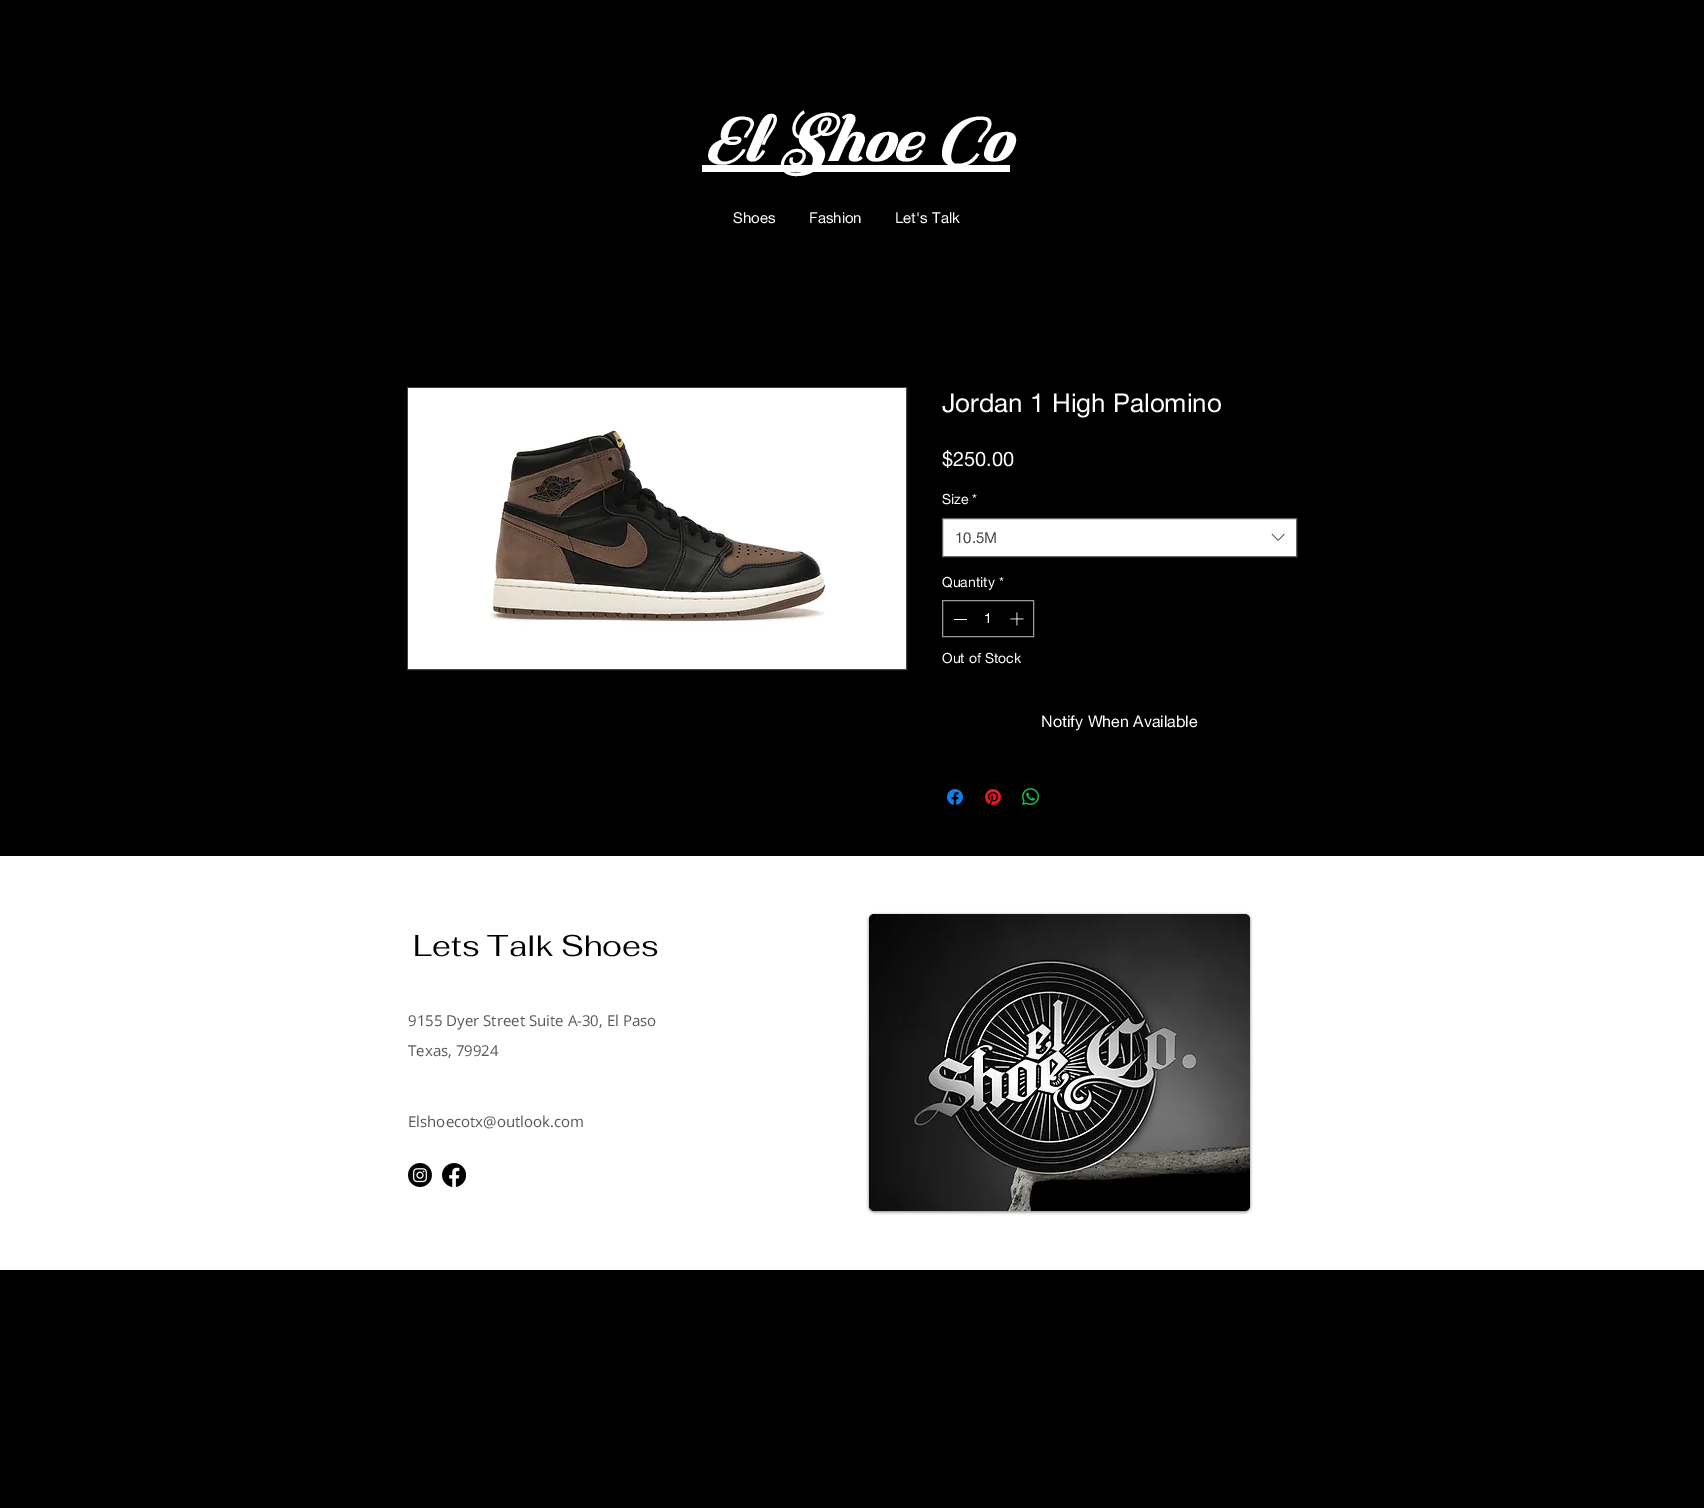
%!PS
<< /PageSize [1704 1508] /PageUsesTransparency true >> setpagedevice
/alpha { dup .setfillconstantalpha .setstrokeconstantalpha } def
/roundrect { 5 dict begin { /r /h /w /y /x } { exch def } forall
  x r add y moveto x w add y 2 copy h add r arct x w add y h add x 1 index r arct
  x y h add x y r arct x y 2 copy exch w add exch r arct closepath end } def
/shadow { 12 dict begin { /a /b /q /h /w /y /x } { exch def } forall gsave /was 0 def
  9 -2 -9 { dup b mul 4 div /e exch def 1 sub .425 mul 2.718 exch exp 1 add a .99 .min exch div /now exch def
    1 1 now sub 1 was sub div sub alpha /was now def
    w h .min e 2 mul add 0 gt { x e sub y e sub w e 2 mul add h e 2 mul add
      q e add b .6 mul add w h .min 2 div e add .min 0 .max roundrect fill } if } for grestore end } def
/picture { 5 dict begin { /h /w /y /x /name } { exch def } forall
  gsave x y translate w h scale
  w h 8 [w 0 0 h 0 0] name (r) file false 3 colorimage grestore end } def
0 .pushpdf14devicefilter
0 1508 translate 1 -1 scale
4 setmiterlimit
0 setgray
0 0 1704 1508 rectfill
1 setgray
702 165 308 7 rectfill
/Sail-BoldItalic [70 0 0 -70 0 0] selectfont
702 161 moveto (El Shoe Co) show
/helveticaneue-Regular [15 0 0 -15 0 0] selectfont
733 223 moveto (Shoes) show
809 223 moveto (Fashion) show
895 223 moveto (Let's Talk) show
0.251 setgray
407.5 387.5 499 282 rectstroke
(img1.rgb) 408 388 498 281 picture
/helveticaneue-Regular [26 0 0 -26 0 0] selectfont
1 setgray
942 412 moveto (Jordan 1 High Palomino) show
/helveticaneue-Regular [20 0 0 -20 0 0] selectfont
942 466 moveto ($250.00) show
/helveticaneue-Regular [14 0 0 -14 0 0] selectfont
942 504 moveto (Size *) show
newpath 942.5 518.5 moveto 1296.5 518.5 lineto 1296.5 556.5 lineto 942.5 556.5 lineto closepath gsave fill grestore
0.4 setgray
stroke
/helveticaneue-Regular [15 0 0 -15 0 0] selectfont
0.267 setgray
955 543 moveto (10.5M) show
(img2.rgb) 1271 533 14 8 picture
/helveticaneue-Regular [14 0 0 -14 0 0] selectfont
1 setgray
942 587 moveto (Quantity *) show
0.6 setgray
942.5 600.5 91 36 rectstroke
1 setgray
954 619 13 1 rectfill
984 623 moveto (1) show
(img3.rgb) 1010 612 14 14 picture
942 663 moveto (Out of Stock) show
/helveticaneue-Regular [16 0 0 -16 0 0] selectfont
1041 727 moveto (Notify When Available) show
(img4.rgb) 947 789 16 16 picture
(img5.rgb) 985 789 16 16 picture
(img6.rgb) 1022 788 17 17 picture
0 856 1704 414 rectfill
/Fahkwang-Regular [30 0 0 -30 0 0] selectfont
0 setgray
413 956 moveto (Lets Talk Shoes) show
869 915 381 297 5 1.5 0.5 shadow
869 914 381 297 5 roundrect fill
(img7.rgb) 869 914 381 297 picture
/OpenSans-Regular [15 0 0 -15 0 0] selectfont
0.349 setgray
408 1026 moveto (9155 Dyer Street Suite A-30, El Paso) show
408 1056 moveto (Texas, 79924) show
408 1127 moveto (Elshoecotx@outlook.com) show
(img8.rgb) 408 1163 24 24 picture
(img9.rgb) 442 1163 24 24 picture
.poppdf14devicefilter showpage
